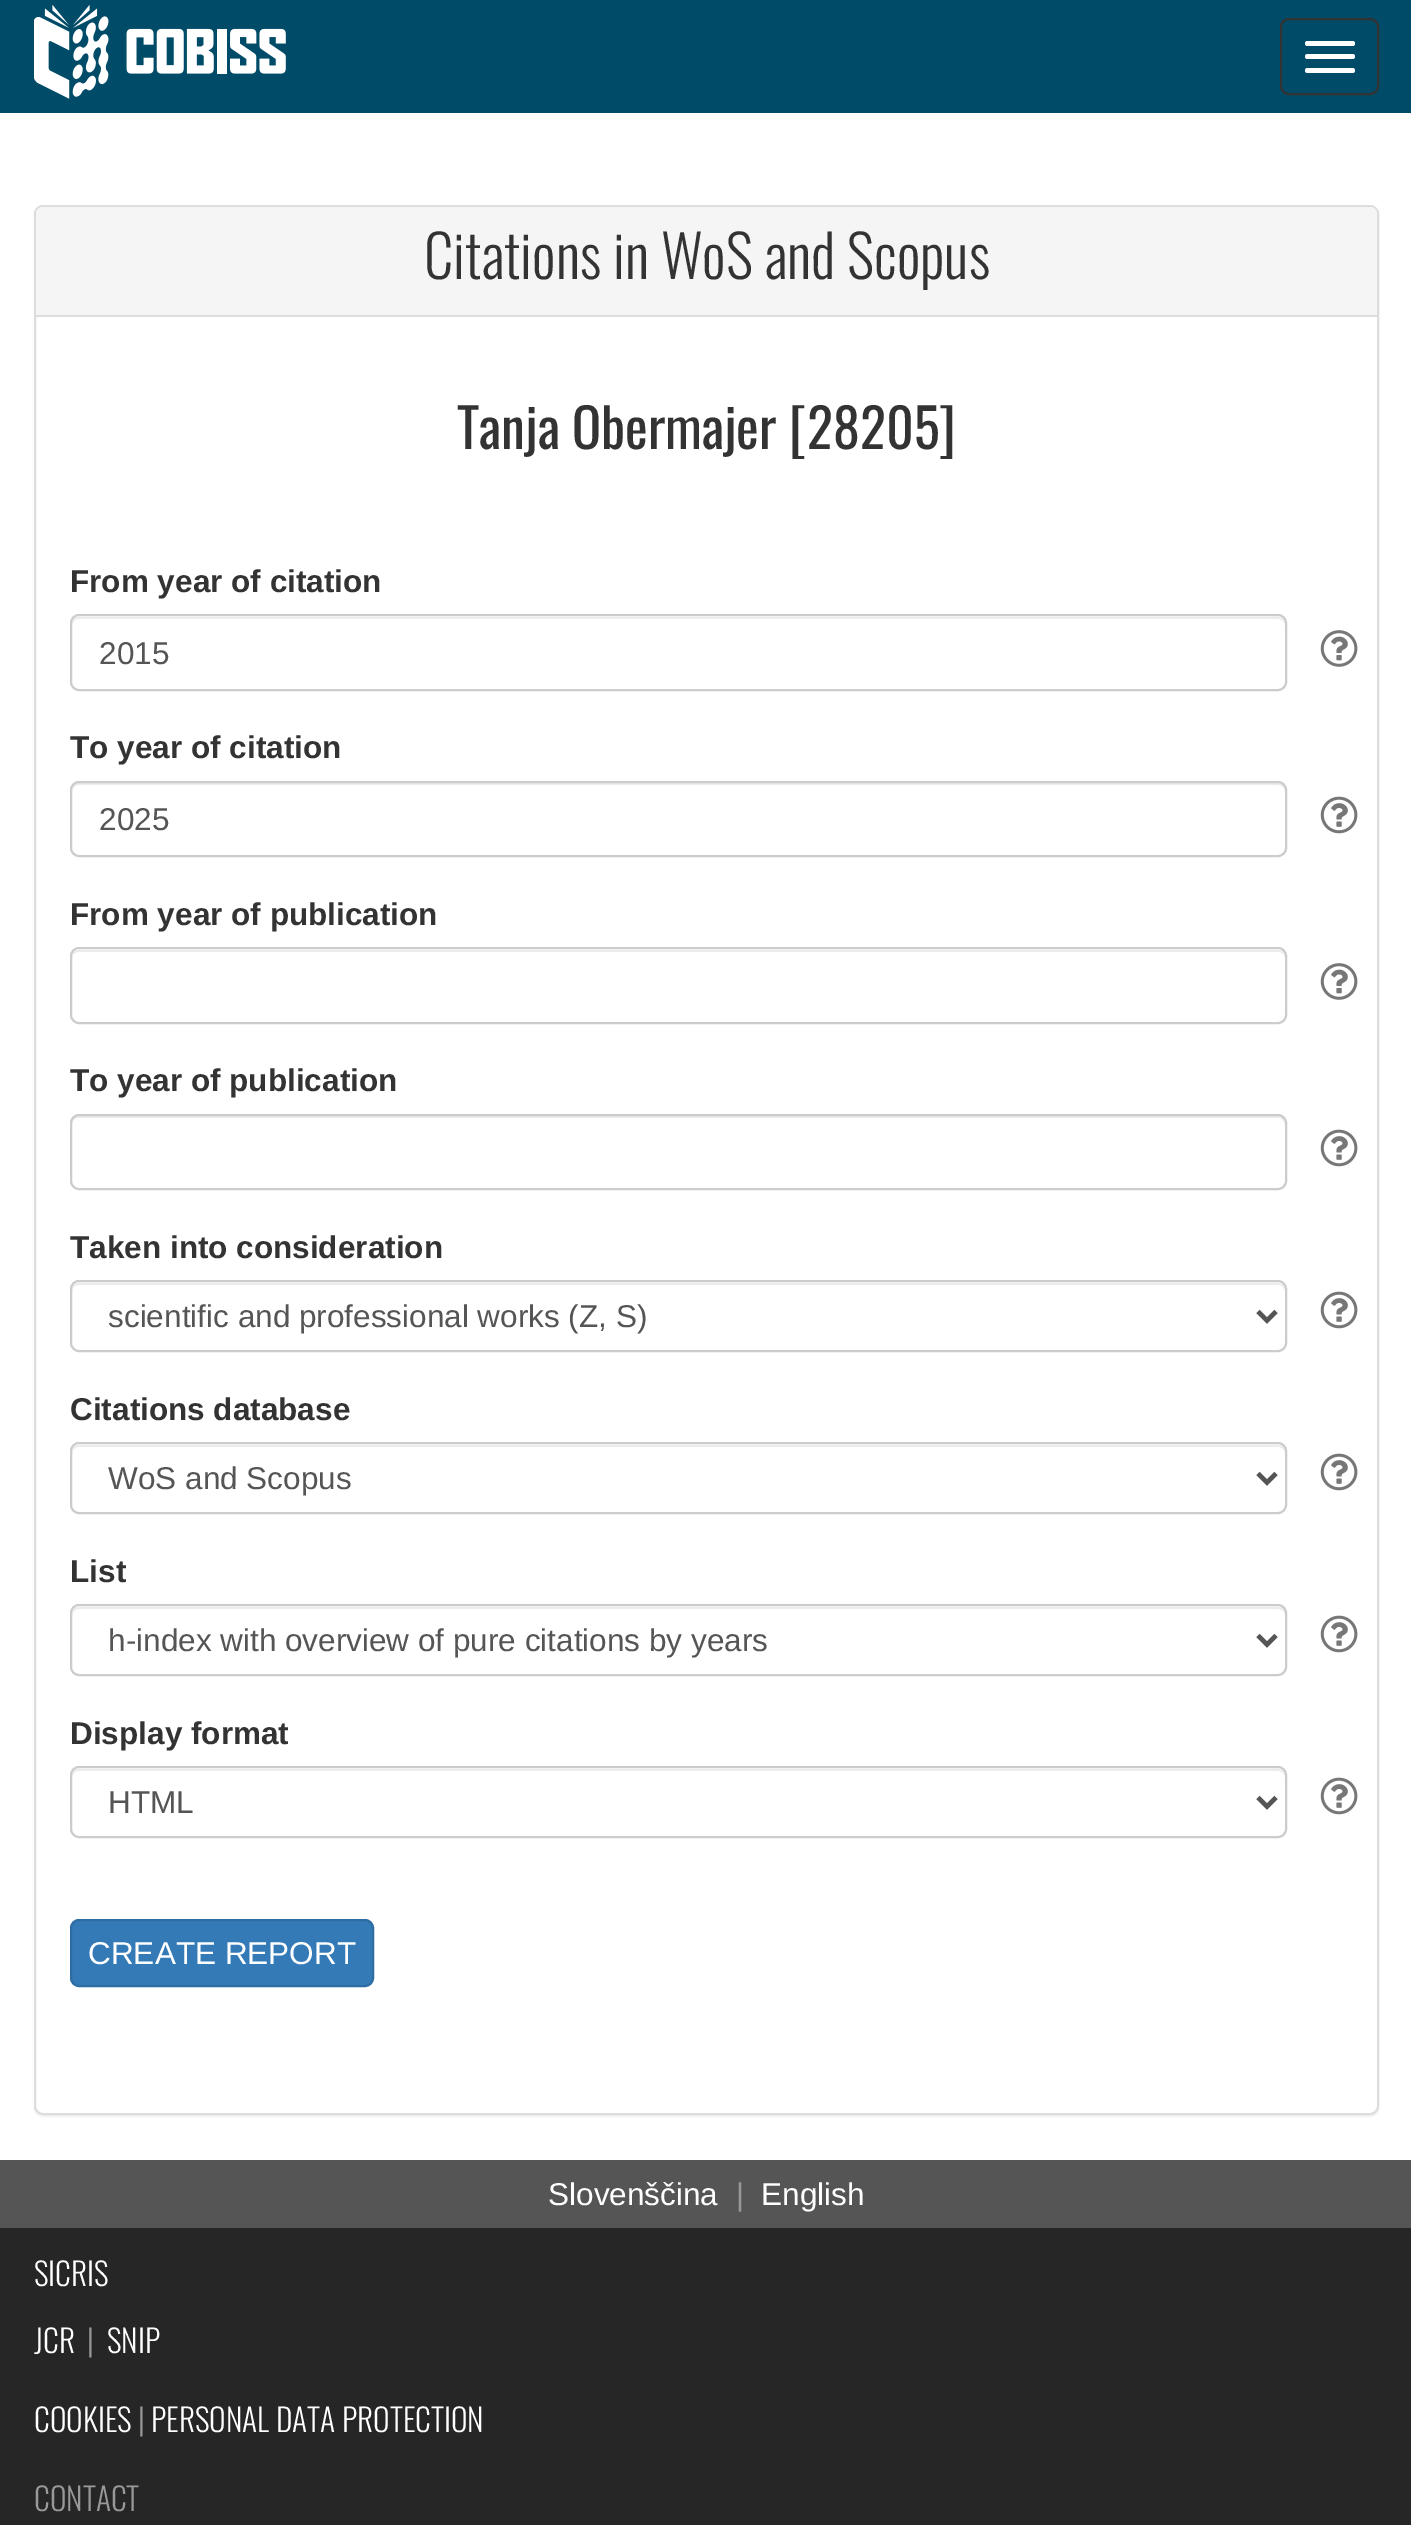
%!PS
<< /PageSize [1411 2525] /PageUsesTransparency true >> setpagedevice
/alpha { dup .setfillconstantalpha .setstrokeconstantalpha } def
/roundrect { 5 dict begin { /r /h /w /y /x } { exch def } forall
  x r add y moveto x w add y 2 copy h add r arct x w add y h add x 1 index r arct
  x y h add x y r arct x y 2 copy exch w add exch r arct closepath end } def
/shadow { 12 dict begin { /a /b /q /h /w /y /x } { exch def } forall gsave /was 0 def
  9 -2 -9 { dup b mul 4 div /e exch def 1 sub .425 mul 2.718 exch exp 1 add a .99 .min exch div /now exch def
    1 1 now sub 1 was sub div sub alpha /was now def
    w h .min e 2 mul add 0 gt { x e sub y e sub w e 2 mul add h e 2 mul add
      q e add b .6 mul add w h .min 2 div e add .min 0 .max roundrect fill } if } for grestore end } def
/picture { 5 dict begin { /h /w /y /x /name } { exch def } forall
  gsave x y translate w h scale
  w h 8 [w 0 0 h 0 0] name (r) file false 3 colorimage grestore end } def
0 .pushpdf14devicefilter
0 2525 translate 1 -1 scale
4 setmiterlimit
1 setgray
0 0 1411 2525 rectfill
0 0.294 0.404 setrgbcolor
0 0 1411 113 rectfill
(img1.rgb) 34 5 252 94 picture
0.2 setgray
2 setlinewidth
1281 19 97 75 8 roundrect stroke
1 setgray
1305 41 50 5 2.5 roundrect fill
1305 54 50 5 2.5 roundrect fill
1305 68 50 5 2.5 roundrect fill
0 setgray
34 207 1345 1910 9 1 0.05 shadow
1 setgray
35 206 1343 1908 8 roundrect gsave fill grestore
0.867 setgray
stroke
0.961 setgray
newpath 43 207 moveto 1370 207 lineto 1374 207 1377 210 1377 214 curveto 1377 317 lineto 36 317 lineto 36 214 lineto 36 210 39 207 43 207 curveto closepath fill
0.867 setgray
36 315 1341 2 rectfill
/Oswald-Light [58.5 0 0 -58.5 0 0] selectfont
0.2 setgray
424 279 moveto (Citations in WoS and Scopus) show
/Oswald-Regular [54 0 0 -54 0 0] selectfont
457 449 moveto (Tanja Obermajer [28205]) show
/LiberationSans-Bold [31.5 0 0 -31.5 0 0] selectfont
70 592 moveto (From year of citation) show
0.925 setgray
newpath 79 619 moveto 1278 619 lineto 1282 619 1285 622 1285 626 curveto 1285 624 lineto 1285 620 1282 617 1278 617 curveto 79 617 lineto 75 617 72 620 72 624 curveto 72 626 lineto 72 622 75 619 79 619 curveto closepath fill
0.8 setgray
71 615 1215 75 8 roundrect stroke
/LiberationSans-Regular [31.5 0 0 -31.5 0 0] selectfont
0.333 setgray
99 664 moveto (2015) show
(img2.rgb) 1320 630 38 37 picture
/LiberationSans-Bold [31.5 0 0 -31.5 0 0] selectfont
0.2 setgray
70 758 moveto (To year of citation) show
0.925 setgray
newpath 79 785 moveto 1278 785 lineto 1282 785 1285 788 1285 792 curveto 1285 790 lineto 1285 786 1282 783 1278 783 curveto 79 783 lineto 75 783 72 786 72 790 curveto 72 792 lineto 72 788 75 785 79 785 curveto closepath fill
0.8 setgray
71 782 1215 74 8 roundrect stroke
/LiberationSans-Regular [31.5 0 0 -31.5 0 0] selectfont
0.333 setgray
99 830 moveto (2025) show
(img3.rgb) 1320 796 38 38 picture
/LiberationSans-Bold [31.5 0 0 -31.5 0 0] selectfont
0.2 setgray
70 925 moveto (From year of publication) show
0.925 setgray
newpath 79 952 moveto 1278 952 lineto 1282 952 1285 955 1285 958 curveto 1285 954 1283 950 1278 950 curveto 79 950 lineto 74 950 72 954 72 958 curveto 72 955 75 952 79 952 curveto closepath fill
0.8 setgray
71 948 1215 75 8 roundrect stroke
(img2.rgb) 1320 963 38 37 picture
0.2 setgray
70 1091 moveto (To year of publication) show
0.925 setgray
newpath 79 1118 moveto 1278 1118 lineto 1282 1118 1285 1121 1285 1125 curveto 1285 1123 lineto 1285 1119 1282 1116 1278 1116 curveto 79 1116 lineto 75 1116 72 1119 72 1123 curveto 72 1125 lineto 72 1121 75 1118 79 1118 curveto closepath fill
0.8 setgray
71 1115 1215 74 8 roundrect stroke
(img3.rgb) 1320 1129 38 38 picture
0.2 setgray
70 1258 moveto (Taken into consideration) show
0.925 setgray
newpath 79 1285 moveto 1278 1285 lineto 1282 1285 1285 1288 1285 1292 curveto 1285 1290 lineto 1285 1286 1282 1283 1278 1283 curveto 79 1283 lineto 75 1283 72 1286 72 1290 curveto 72 1292 lineto 72 1288 75 1285 79 1285 curveto closepath fill
0.8 setgray
71 1281 1215 70 8 roundrect stroke
0.333 setgray
4.5 setlinewidth
newpath 1258 1311.5 moveto 1267 1320.5 lineto 1276 1311.5 lineto stroke
/LiberationSans-Regular [31.5 0 0 -31.5 0 0] selectfont
108 1327 moveto (scientific and professional works \(Z, S\)) show
(img3.rgb) 1320 1291 38 38 picture
/LiberationSans-Bold [31.5 0 0 -31.5 0 0] selectfont
0.2 setgray
70 1420 moveto (Citations database) show
0.925 setgray
newpath 79 1447 moveto 1278 1447 lineto 1282 1447 1285 1450 1285 1454 curveto 1285 1452 lineto 1285 1448 1282 1445 1278 1445 curveto 79 1445 lineto 75 1445 72 1448 72 1452 curveto 72 1454 lineto 72 1450 75 1447 79 1447 curveto closepath fill
0.8 setgray
2 setlinewidth
71 1443 1215 70 8 roundrect stroke
0.333 setgray
4.5 setlinewidth
newpath 1258 1473.5 moveto 1267 1482.5 lineto 1276 1473.5 lineto stroke
/LiberationSans-Regular [31.5 0 0 -31.5 0 0] selectfont
108 1489 moveto (WoS and Scopus) show
(img3.rgb) 1320 1453 38 38 picture
/LiberationSans-Bold [31.5 0 0 -31.5 0 0] selectfont
0.2 setgray
70 1582 moveto (List) show
0.925 setgray
newpath 79 1609 moveto 1278 1609 lineto 1282 1609 1285 1612 1285 1616 curveto 1285 1614 lineto 1285 1610 1282 1607 1278 1607 curveto 79 1607 lineto 75 1607 72 1610 72 1614 curveto 72 1616 lineto 72 1612 75 1609 79 1609 curveto closepath fill
0.8 setgray
2 setlinewidth
71 1605 1215 70 8 roundrect stroke
0.333 setgray
4.5 setlinewidth
newpath 1258 1635.5 moveto 1267 1644.5 lineto 1276 1635.5 lineto stroke
/LiberationSans-Regular [31.5 0 0 -31.5 0 0] selectfont
108 1651 moveto (h-index with overview of pure citations by years) show
(img3.rgb) 1320 1615 38 38 picture
/LiberationSans-Bold [31.5 0 0 -31.5 0 0] selectfont
0.2 setgray
70 1744 moveto (Display format) show
0.925 setgray
newpath 79 1771 moveto 1278 1771 lineto 1282 1771 1285 1774 1285 1778 curveto 1285 1776 lineto 1285 1772 1282 1769 1278 1769 curveto 79 1769 lineto 75 1769 72 1772 72 1776 curveto 72 1778 lineto 72 1774 75 1771 79 1771 curveto closepath fill
0.8 setgray
2 setlinewidth
71 1767 1215 70 8 roundrect stroke
0.333 setgray
4.5 setlinewidth
newpath 1258 1797.5 moveto 1267 1806.5 lineto 1276 1797.5 lineto stroke
/LiberationSans-Regular [31.5 0 0 -31.5 0 0] selectfont
108 1813 moveto (HTML) show
(img3.rgb) 1320 1777 38 38 picture
0.2 0.478 0.718 setrgbcolor
71 1920 302 66 8 roundrect gsave fill grestore
0.18 0.427 0.643 setrgbcolor
2 setlinewidth
stroke
1 setgray
88 1964 moveto (CREATE REPORT) show
0.149 setgray
0 2228 1411 297 rectfill
0.333 setgray
0 2160 1411 68 rectfill
1 setgray
548 2205 moveto (Slovenščina) show
0.6 setgray
736 2205 moveto (|) show
1 setgray
761 2205 moveto (English) show
/Oswald-Light [31.5 0 0 -31.5 0 0] selectfont
34 2286 moveto (SICRIS) show
34 2353 moveto (JCR) show
0.6 setgray
87 2353 moveto (|) show
1 setgray
107 2353 moveto (SNIP) show
34 2432 moveto (COOKIES) show
0.6 setgray
138 2432 moveto (|) show
1 setgray
151 2432 moveto (PERSONAL DATA PROTECTION) show
0.6 setgray
34 2511 moveto (CONTACT) show
.poppdf14devicefilter showpage
